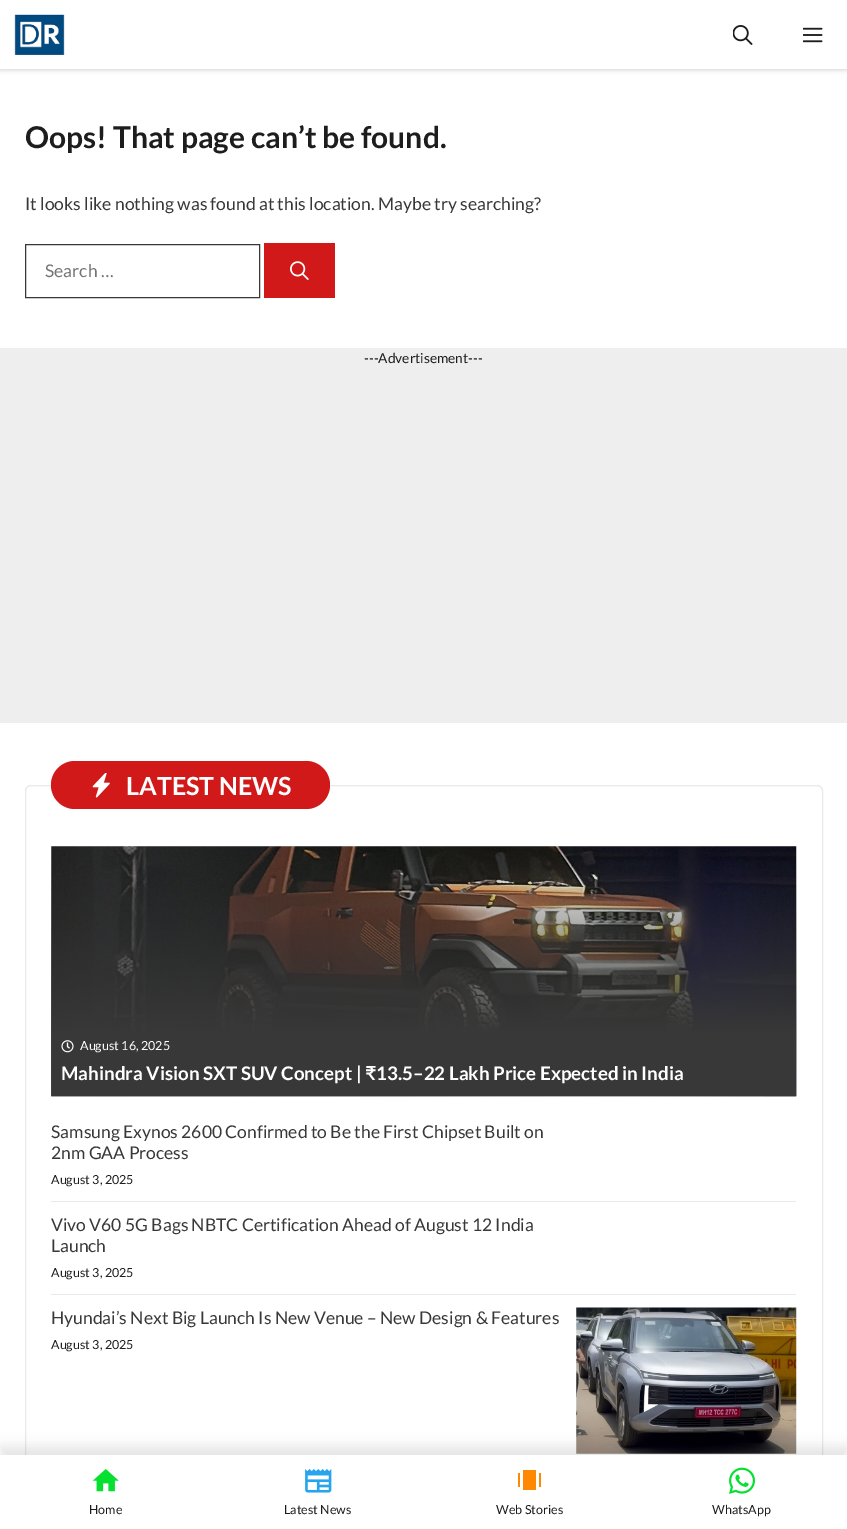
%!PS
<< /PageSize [847 1529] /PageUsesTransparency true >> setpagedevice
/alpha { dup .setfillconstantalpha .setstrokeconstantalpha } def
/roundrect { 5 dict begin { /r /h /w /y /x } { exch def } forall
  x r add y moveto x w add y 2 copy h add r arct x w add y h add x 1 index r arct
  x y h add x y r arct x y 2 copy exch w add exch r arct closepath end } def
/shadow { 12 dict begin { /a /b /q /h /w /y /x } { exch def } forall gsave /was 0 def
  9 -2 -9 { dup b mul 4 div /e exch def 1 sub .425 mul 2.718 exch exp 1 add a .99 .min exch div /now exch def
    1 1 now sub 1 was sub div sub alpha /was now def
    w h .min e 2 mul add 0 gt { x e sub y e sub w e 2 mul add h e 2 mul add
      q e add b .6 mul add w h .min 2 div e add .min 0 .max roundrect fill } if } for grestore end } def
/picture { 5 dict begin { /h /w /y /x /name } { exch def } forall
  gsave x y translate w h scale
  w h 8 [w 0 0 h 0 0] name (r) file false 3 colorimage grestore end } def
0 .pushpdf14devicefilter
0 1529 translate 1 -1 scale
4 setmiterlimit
1 setgray
0 0 847 1529 rectfill
0 setgray
0 1 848 69 0 2.5 0.16 shadow
1 setgray
0 0 847 69 rectfill
(img1.rgb) 14 14 51 41 picture
(img2.rgb) 733 25 20 20 picture
(img3.rgb) 803 27 20 16 picture
/Lato-Bold [30 0 0 -30 0 0] selectfont
0.114 setgray
25 148 moveto (Oops! That page can’t be found.) show
/Lato-Regular [17.5 0 0 -17.5 0 0] selectfont
0.22 setgray
25 210 moveto (It looks like nothing was found at this location. Maybe try searching?) show
25.5 244.5 234 53 rectstroke
0.459 setgray
45 277 moveto (Search …) show
0.82 0.098 0.098 setrgbcolor
264 243 71 55 rectfill
(img4.rgb) 290 261 19 19 picture
0.933 setgray
0 348 847 375 rectfill
/Lato-Regular [13.75 0 0 -13.75 0 0] selectfont
0.114 setgray
364 363 moveto (---Advertisement---) show
0.914 setgray
25.5 785.5 797 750 5.5 roundrect stroke
0.82 0.098 0.098 setrgbcolor
51 761 279 48 24 roundrect fill
(img5.rgb) 92 773 18 25 picture
/Lato-Bold [25 0 0 -25 0 0] selectfont
1 setgray
126 795 moveto (LATEST NEWS) show
(img6.rgb) 51 846 746 251 picture
(img7.rgb) 61 1040 13 13 picture
/Lato-Regular [12.5 0 0 -12.5 0 0] selectfont
80 1050 moveto (August 16, 2025) show
/Lato-Bold [18.75 0 0 -18.75 0 0] selectfont
61 1080 moveto (Mahindra Vision SXT SUV Concept |) show
/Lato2-Bold [18.75 0 0 -18.75 0 0] selectfont
365 1080 moveto (₹) show
/Lato-Bold [18.75 0 0 -18.75 0 0] selectfont
376 1080 moveto (13.5–22 Lakh Price Expected in India) show
0.914 setgray
51 1201 745 1 rectfill
/Lato-Regular [17.5 0 0 -17.5 0 0] selectfont
0.22 setgray
51 1138 moveto (Samsung Exynos 2600 Confirmed to Be the First Chipset Built on) show
51 1159 moveto (2nm GAA Process) show
/Lato-Regular [12.5 0 0 -12.5 0 0] selectfont
0.114 setgray
51 1184 moveto (August 3, 2025) show
0.914 setgray
51 1294 745 1 rectfill
/Lato-Regular [17.5 0 0 -17.5 0 0] selectfont
0.22 setgray
51 1231 moveto (Vivo V60 5G Bags NBTC Certification Ahead of August 12 India) show
51 1252 moveto (Launch) show
/Lato-Regular [12.5 0 0 -12.5 0 0] selectfont
0.114 setgray
51 1277 moveto (August 3, 2025) show
/Lato-Regular [17.5 0 0 -17.5 0 0] selectfont
0.22 setgray
51 1324 moveto (Hyundai’s Next Big Launch Is New Venue – New Design & Features) show
/Lato-Regular [12.5 0 0 -12.5 0 0] selectfont
0.114 setgray
51 1349 moveto (August 3, 2025) show
(img8.rgb) 576 1307 221 147 picture
0 setgray
0 1446 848 75 0 6 0.1 shadow
1 setgray
0 1455 847 74 rectfill
(img9.rgb) 92 1469 27 23 picture
0.114 setgray
89 1514 moveto (Home) show
(img10.rgb) 305 1469 27 24 picture
284 1514 moveto (Latest News) show
1 0.533 0 setrgbcolor
518 1473 2 14 rectfill
523 1470 13 20 rectfill
539 1473 2 14 rectfill
0.114 setgray
496 1514 moveto (Web Stories) show
(img11.rgb) 729 1467 26 27 picture
712 1514 moveto (WhatsApp) show
.poppdf14devicefilter showpage
